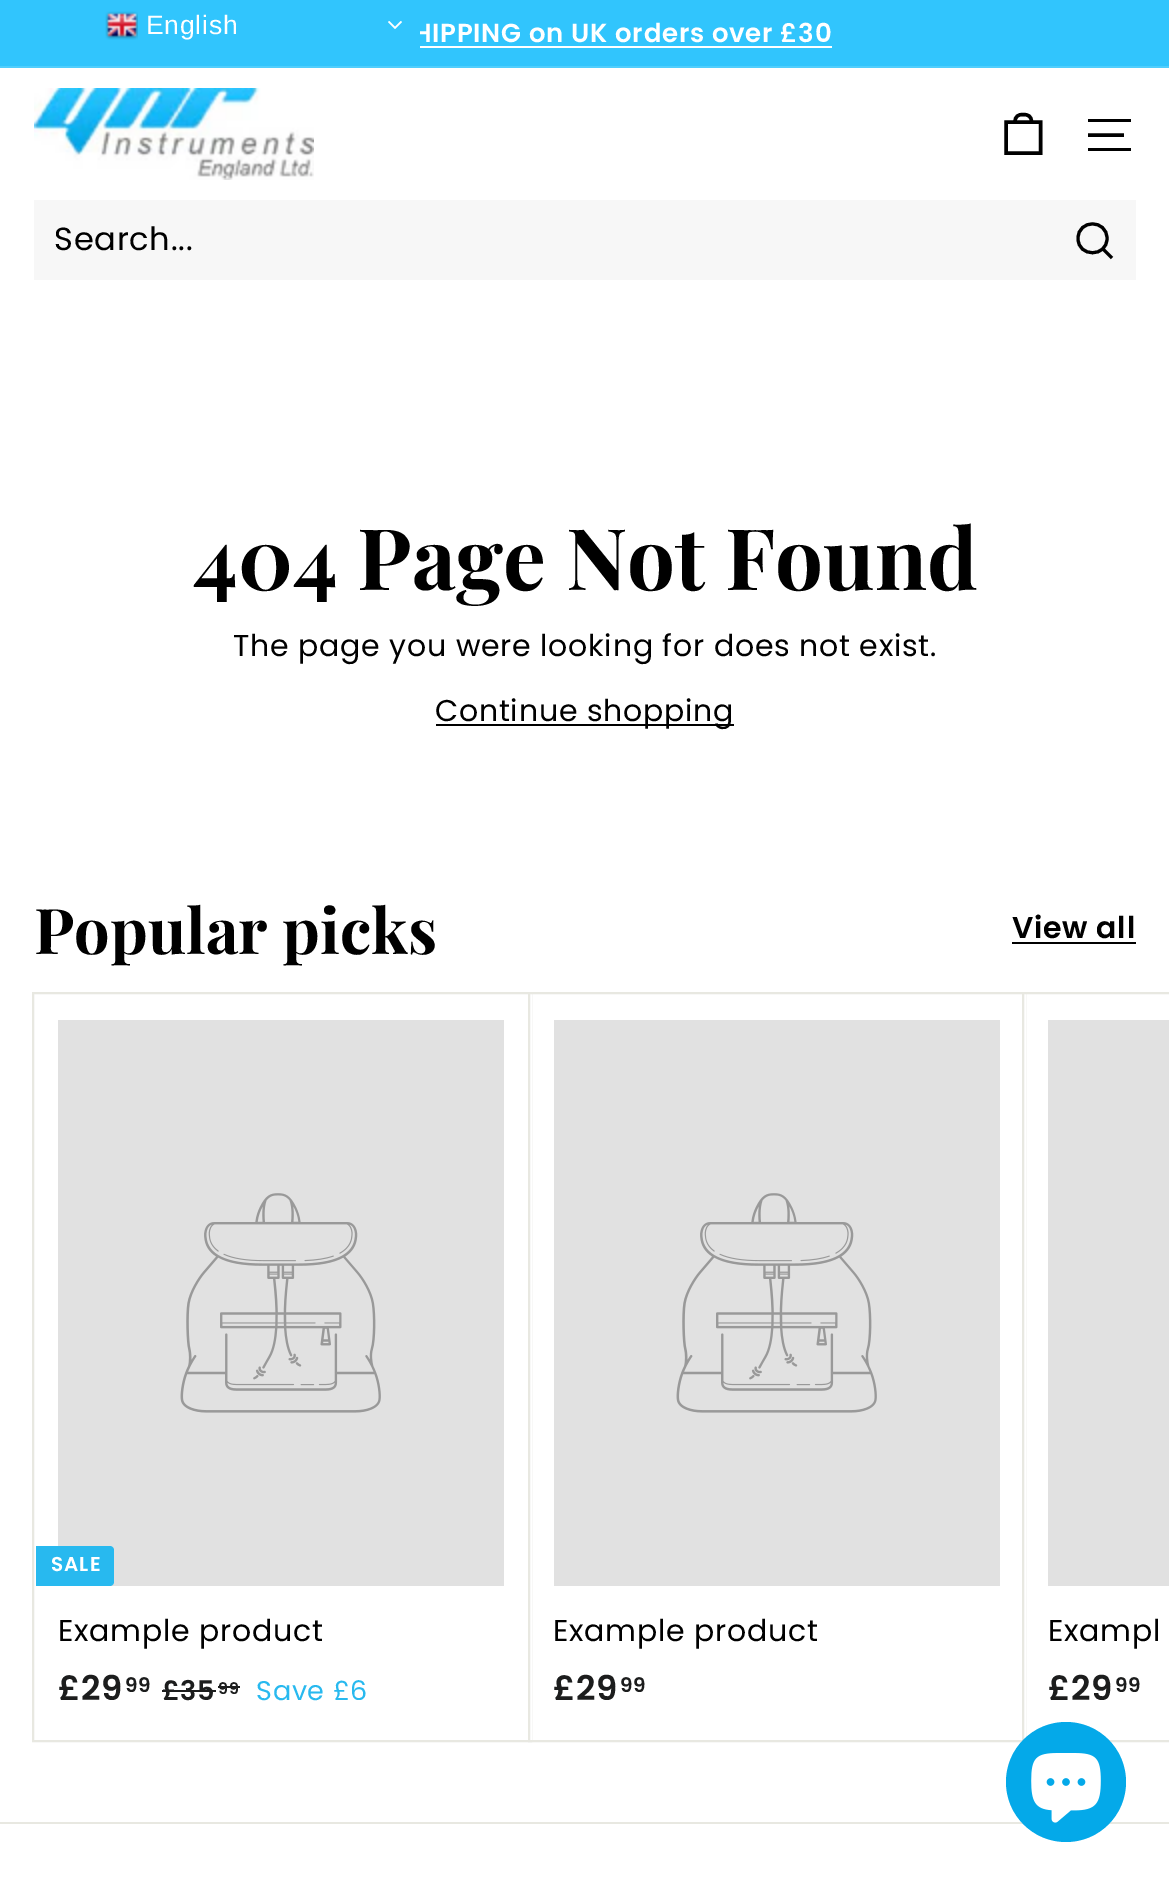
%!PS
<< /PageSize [1169 1883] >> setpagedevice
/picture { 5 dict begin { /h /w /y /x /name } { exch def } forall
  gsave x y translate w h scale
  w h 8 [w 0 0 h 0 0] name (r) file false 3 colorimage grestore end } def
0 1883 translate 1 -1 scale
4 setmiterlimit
1 setgray
0 0 1169 1883 rectfill
0.192 0.773 0.992 setrgbcolor
0 0 1169 66 rectfill
/Poppins-SemiBold [26 0 0 -26 0 0] selectfont
1 setgray
413 42 moveto 0.75 0 (HIPPING on UK orders over £30) ashow
0.192 0.773 0.992 setrgbcolor
414 23 6 19 rectfill
(img1.rgb) 105 11 33 29 picture
/LiberationSans-Regular [26.5 0 0 -26.5 0 0] selectfont
1 setgray
146 34 moveto 0.75 0 (English) ashow
(img2.rgb) 388 21 14 8 picture
420 46 412 2 rectfill
0.314 0.808 0.992 setrgbcolor
0 66 1169 2 rectfill
(img3.rgb) 34 88 280 92 picture
0 setgray
3.4 setlinewidth
newpath 1015 122 moveto 1015 116 1018.5 114.5 1023 114.5 curveto 1028 114.5 1031.5 116 1031.5 122 curveto 1006 122 moveto 1040.5 122 lineto 1040.5 153 lineto 1006 153 lineto closepath stroke
1088 119 43 3 rectfill
newpath 1088 135 moveto 1124 135 lineto stroke
1088 148 43 3 rectfill
0.969 setgray
34 200 1102 80 rectfill
/Poppins-Regular [32 0 0 -32 0 0] selectfont
0 setgray
54 250 moveto 0.75 0 (Search...) ashow
3.1 setlinewidth
newpath 1107 238.5 moveto 1107 257.5 1078 257.5 1078 238.5 curveto 1078 219 1107 219 1107 238.5 curveto closepath 1112 258 moveto 1103 249 lineto stroke
/PlayfairDisplay-Bold [85 0 0 -85 0 0] selectfont
193 590 moveto (404 Page Not Found) show
/Poppins-Regular [30 0 0 -30 0 0] selectfont
233 656 moveto 0.75 0 (The page you were looking for does not exist.) ashow
436 724 298 2 rectfill
435 721 moveto 0.75 0 (Continue shopping) ashow
/PlayfairDisplay-Bold [63 0 0 -63 0 0] selectfont
34 954 moveto (Popular picks) show
/Poppins-SemiBold [30 0 0 -30 0 0] selectfont
1012 938 moveto 0.75 0 (View all) ashow
1012 942 124 2 rectfill
0.882 setgray
58 1020 446 566 rectfill
(img4.rgb) 180 1193 201 220 picture
0.11 0.114 0.114 setrgbcolor
162 1690 54 2 rectfill
218 1686 22 2 rectfill
0.91 0.91 0.882 setrgbcolor
2 setlinewidth
33 993 498 748 rectstroke
0.157 0.725 0.937 setrgbcolor
newpath 36 1546 moveto 110 1546 lineto 112 1546 114 1548 114 1550 curveto 114 1582 lineto 114 1584 112 1586 110 1586 curveto 36 1586 lineto closepath fill
/Poppins-SemiBold [20 0 0 -20 0 0] selectfont
1 setgray
51 1571 moveto 1 0 (SALE) ashow
/Poppins-Regular [30 0 0 -30 0 0] selectfont
0 setgray
58 1641 moveto 0.75 0 (Example product) ashow
/Poppins-SemiBold [34 0 0 -34 0 0] selectfont
0.11 0.114 0.114 setrgbcolor
58 1700 moveto 0.75 0 (£29) ashow
/Poppins-SemiBold [20 0 0 -20 0 0] selectfont
125 1692 moveto 0.75 0 (99) ashow
/Poppins-SemiBold [27 0 0 -27 0 0] selectfont
162 1700 moveto 0.75 0 (£35) ashow
/Poppins-SemiBold [16 0 0 -16 0 0] selectfont
218 1694 moveto 0.75 0 (99) ashow
/Poppins-Regular [27 0 0 -27 0 0] selectfont
0.157 0.725 0.937 setrgbcolor
256 1700 moveto 0.75 0 (Save £6) ashow
1 setgray
530 994 2 746 rectfill
0.882 setgray
554 1020 446 566 rectfill
(img4.rgb) 676 1193 201 220 picture
0.91 0.91 0.882 setrgbcolor
529 993 496 748 rectstroke
/Poppins-Regular [30 0 0 -30 0 0] selectfont
0 setgray
553 1641 moveto 0.75 0 (Example product) ashow
/Poppins-SemiBold [34 0 0 -34 0 0] selectfont
0.11 0.114 0.114 setrgbcolor
553 1700 moveto 0.75 0 (£29) ashow
/Poppins-SemiBold [20 0 0 -20 0 0] selectfont
620 1692 moveto 0.75 0 (99) ashow
1 setgray
1024 994 2 746 rectfill
0.882 setgray
1048 1020 121 566 rectfill
0.91 0.91 0.882 setrgbcolor
1023 993 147 748 rectstroke
/Poppins-Regular [30 0 0 -30 0 0] selectfont
0 setgray
1048 1641 moveto 0.75 0 (Exampl) ashow
/Poppins-SemiBold [34 0 0 -34 0 0] selectfont
0.11 0.114 0.114 setrgbcolor
1048 1700 moveto 0.75 0 (£29) ashow
/Poppins-SemiBold [20 0 0 -20 0 0] selectfont
1115 1692 moveto 0.75 0 (99) ashow
0.91 0.91 0.882 setrgbcolor
0 1822 1169 2 rectfill
0.016 0.663 0.914 setrgbcolor
newpath 1066 1782 60 0 360 arc closepath fill
(img5.rgb) 1031 1753 70 70 picture
showpage
